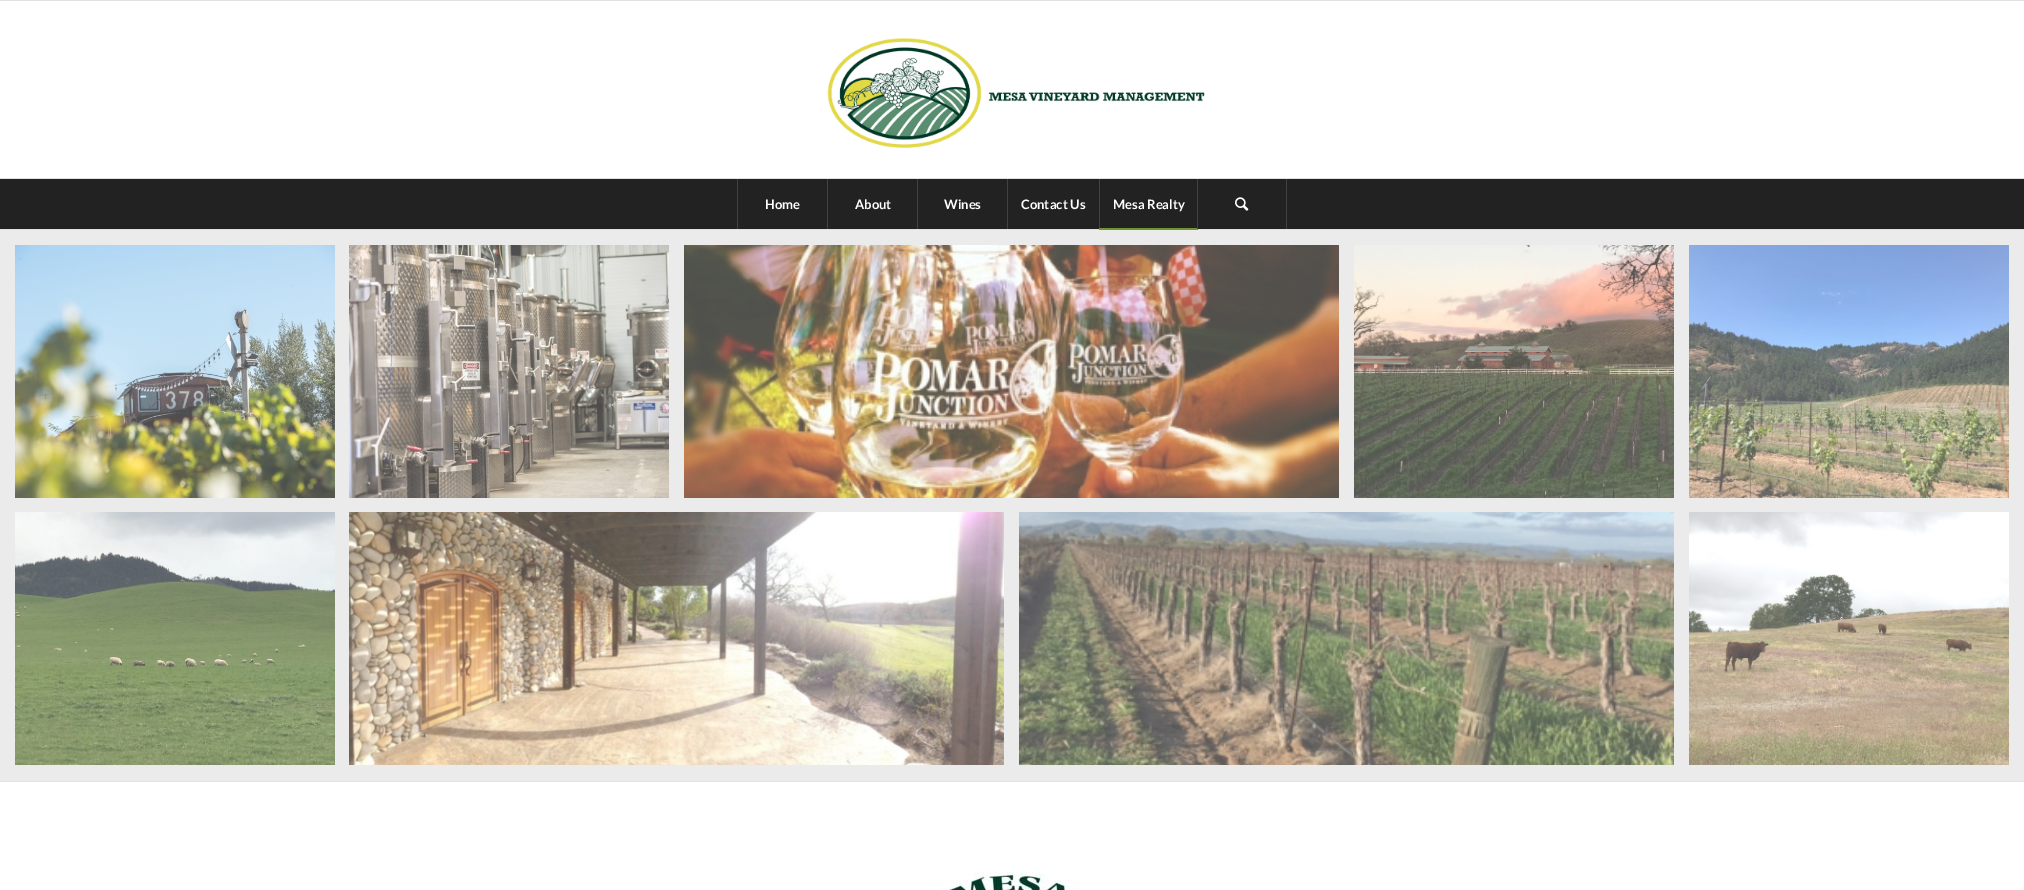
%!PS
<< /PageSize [2024 890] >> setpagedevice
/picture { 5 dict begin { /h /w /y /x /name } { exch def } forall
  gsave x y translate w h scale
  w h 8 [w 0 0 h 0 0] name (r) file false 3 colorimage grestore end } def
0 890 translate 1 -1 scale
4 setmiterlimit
1 setgray
0 0 2024 890 rectfill
0.882 setgray
0 0 2024 1 rectfill
0 229 2024 1 rectfill
(img1.rgb) 827 38 378 110 picture
0.133 setgray
0 179 2024 50 rectfill
0.882 setgray
0 178 2024 1 rectfill
0.259 setgray
737 179 1 50 rectfill
/Lato-Bold [13 0 0 -13 0 0] selectfont
1 setgray
765 209 moveto (Home) show
0.259 setgray
827 179 1 50 rectfill
1 setgray
855 209 moveto (About) show
0.259 setgray
917 179 1 50 rectfill
1 setgray
944 209 moveto (Wines) show
0.259 setgray
1007 179 1 50 rectfill
1 setgray
1021 209 moveto (Contact Us) show
0.259 setgray
1099 179 1 50 rectfill
1 setgray
1113 209 moveto (Mesa Realty) show
0.443 0.58 0.188 setrgbcolor
1099 228 99 2 rectfill
0.259 setgray
1286 179 1 50 rectfill
1197 179 1 50 rectfill
(img2.rgb) 1235 197 14 14 picture
0.922 setgray
0 230 2024 551 rectfill
(img3.rgb) 15 245 320 253 picture
(img4.rgb) 349 245 320 253 picture
(img5.rgb) 684 245 655 253 picture
(img6.rgb) 1354 245 320 253 picture
(img7.rgb) 1689 245 320 253 picture
(img8.rgb) 15 512 320 253 picture
(img9.rgb) 349 512 655 253 picture
(img10.rgb) 1019 512 655 253 picture
(img11.rgb) 1689 512 320 253 picture
0.882 setgray
0 781 2024 1 rectfill
(img12.rgb) 942 872 141 18 picture
showpage
